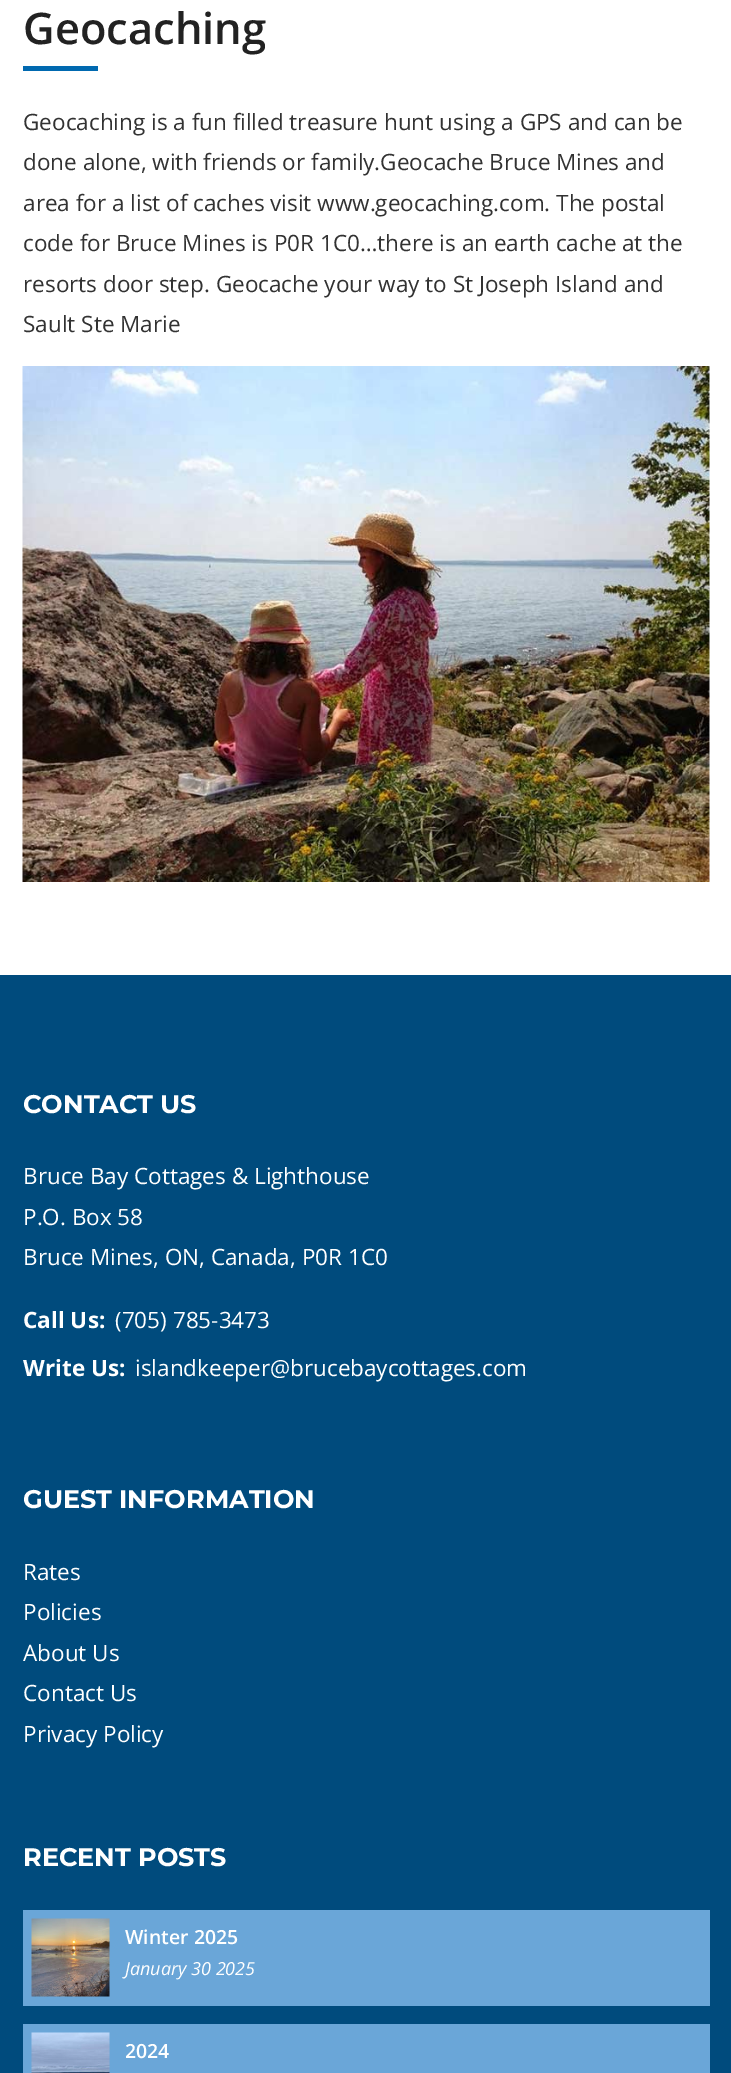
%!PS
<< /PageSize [731 2073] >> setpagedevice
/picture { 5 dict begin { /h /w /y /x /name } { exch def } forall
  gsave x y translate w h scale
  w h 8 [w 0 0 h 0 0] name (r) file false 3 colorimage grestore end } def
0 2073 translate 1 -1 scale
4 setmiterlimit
1 setgray
0 0 731 2073 rectfill
/OpenSans-SemiBold [43.5 0 0 -43.5 0 0] selectfont
0.133 setgray
23 44 moveto (Geocaching) show
0 0.412 0.69 setrgbcolor
23 66 75 5 rectfill
/OpenSans-Regular [22.5 0 0 -22.5 0 0] selectfont
0.196 setgray
23 130 moveto (Geocaching is a fun filled treasure hunt using a GPS and can be) show
23 170 moveto (done alone, with friends or family.Geocache Bruce Mines and) show
23 211 moveto (area for a list of caches visit www.geocaching.com. The postal) show
23 251 moveto (code for Bruce Mines is P0R 1C0…there is an earth cache at the) show
23 292 moveto (resorts door step. Geocache your way to St Joseph Island and) show
23 332 moveto (Sault Ste Marie) show
(img1.rgb) 22 366 688 516 picture
0 0.294 0.49 setrgbcolor
0 975 731 1098 rectfill
/Montserrat-Bold [25.5 0 0 -25.5 0 0] selectfont
1 setgray
23 1113 moveto (CONTACT US) show
/OpenSans-Regular [22.5 0 0 -22.5 0 0] selectfont
23 1184 moveto (Bruce Bay Cottages & Lighthouse) show
23 1225 moveto (P.O. Box 58) show
23 1265 moveto (Bruce Mines, ON, Canada, P0R 1C0) show
/OpenSans-Bold [22.5 0 0 -22.5 0 0] selectfont
23 1328 moveto (Call Us:) show
/OpenSans-Regular [22.5 0 0 -22.5 0 0] selectfont
115 1328 moveto (\(705\) 785-3473) show
/OpenSans-Bold [22.5 0 0 -22.5 0 0] selectfont
23 1376 moveto (Write Us:) show
/OpenSans-Regular [22.5 0 0 -22.5 0 0] selectfont
135 1376 moveto (islandkeeper@brucebaycottages.com) show
/Montserrat-Bold [25.5 0 0 -25.5 0 0] selectfont
23 1508 moveto (GUEST INFORMATION) show
/OpenSans-Regular [22.5 0 0 -22.5 0 0] selectfont
23 1580 moveto (Rates) show
23 1620 moveto (Policies) show
23 1661 moveto (About Us) show
23 1701 moveto (Contact Us) show
23 1742 moveto (Privacy Policy) show
/Montserrat-Bold [25.5 0 0 -25.5 0 0] selectfont
23 1866 moveto (RECENT POSTS) show
0.416 0.651 0.847 setrgbcolor
23 1910 687 96 rectfill
(img2.rgb) 31 1918 79 79 picture
/OpenSans-SemiBold [19.5 0 0 -19.5 0 0] selectfont
1 setgray
125 1944 moveto (Winter 2025) show
/OpenSans-Italic [18 0 0 -18 0 0] selectfont
125 1975 moveto (January 30 2025) show
0.416 0.651 0.847 setrgbcolor
23 2024 687 49 rectfill
(img3.rgb) 31 2032 79 41 picture
/OpenSans-SemiBold [19.5 0 0 -19.5 0 0] selectfont
1 setgray
125 2058 moveto (2024) show
showpage
